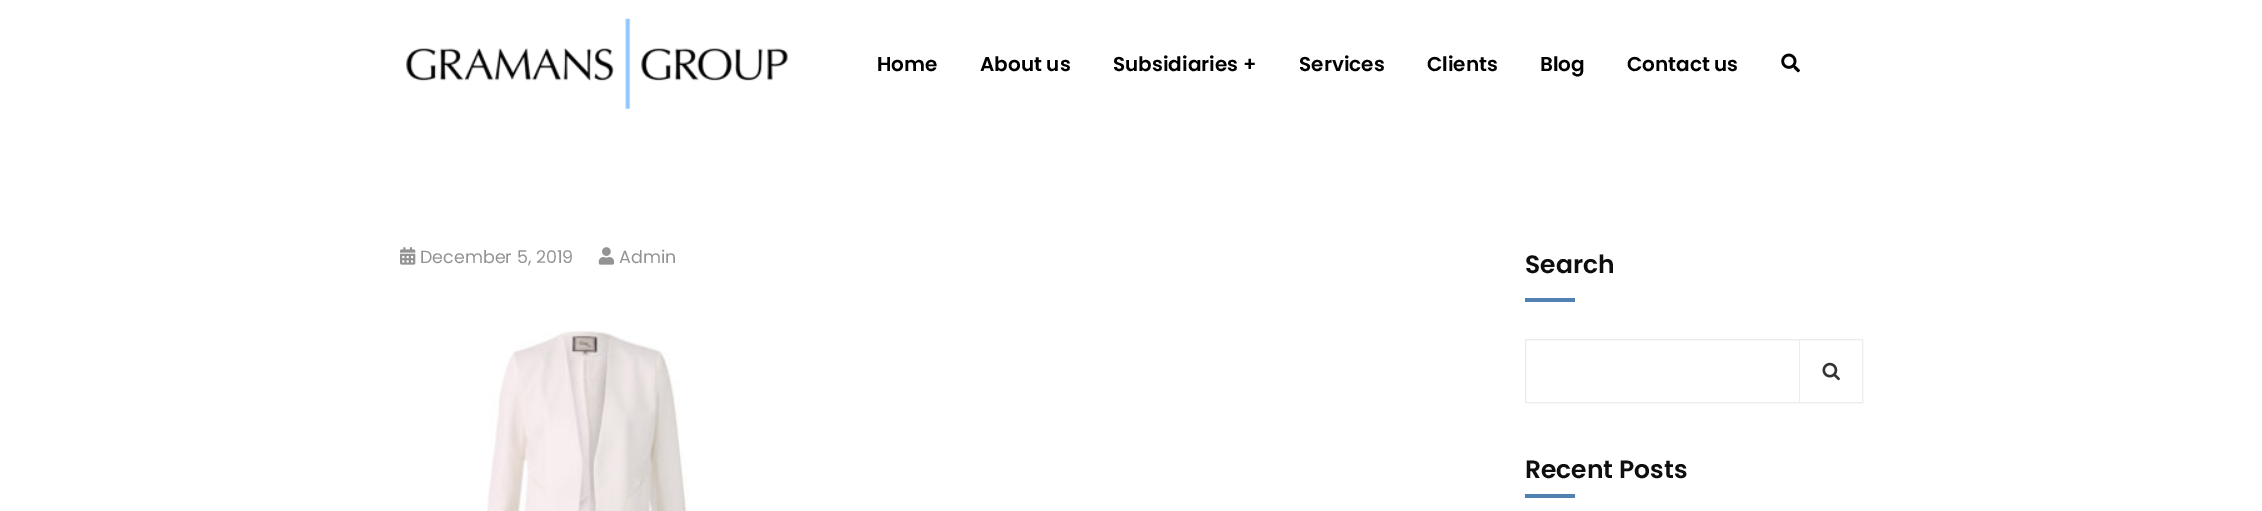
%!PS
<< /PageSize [2262 511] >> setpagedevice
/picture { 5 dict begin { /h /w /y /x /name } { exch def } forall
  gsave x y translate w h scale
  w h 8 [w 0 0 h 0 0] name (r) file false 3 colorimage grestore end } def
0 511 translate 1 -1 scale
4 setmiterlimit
1 setgray
0 0 2262 511 rectfill
(img1.rgb) 406 18 382 91 picture
/Poppins-SemiBold [20 0 0 -20 0 0] selectfont
0 setgray
877 71 moveto (Home) show
980 71 moveto (About us) show
1113 71 moveto (Subsidiaries +) show
1299 71 moveto (Services) show
1427 71 moveto (Clients) show
1540 71 moveto (Blog) show
1627 71 moveto (Contact us) show
(img2.rgb) 1781 53 19 20 picture
(img3.rgb) 400 247 16 18 picture
/Poppins-Regular [17.5 0 0 -17.5 0 0] selectfont
0.576 setgray
420 263 moveto (December 5, 2019) show
(img4.rgb) 598 247 17 18 picture
619 263 moveto (Admin) show
(img5.rgb) 487 331 202 180 picture
/Poppins-SemiBold [25 0 0 -25 0 0] selectfont
0.055 setgray
1525 273 moveto (Search) show
0.318 0.506 0.698 setrgbcolor
1525 298 50 4 rectfill
0.925 0.925 0.941 setrgbcolor
1525.5 339.5 337 63 rectstroke
1799 339 1 64 rectfill
(img6.rgb) 1822 362 18 19 picture
0.055 setgray
1525 478 moveto (Recent Posts) show
0.318 0.506 0.698 setrgbcolor
1525 494 50 4 rectfill
showpage
